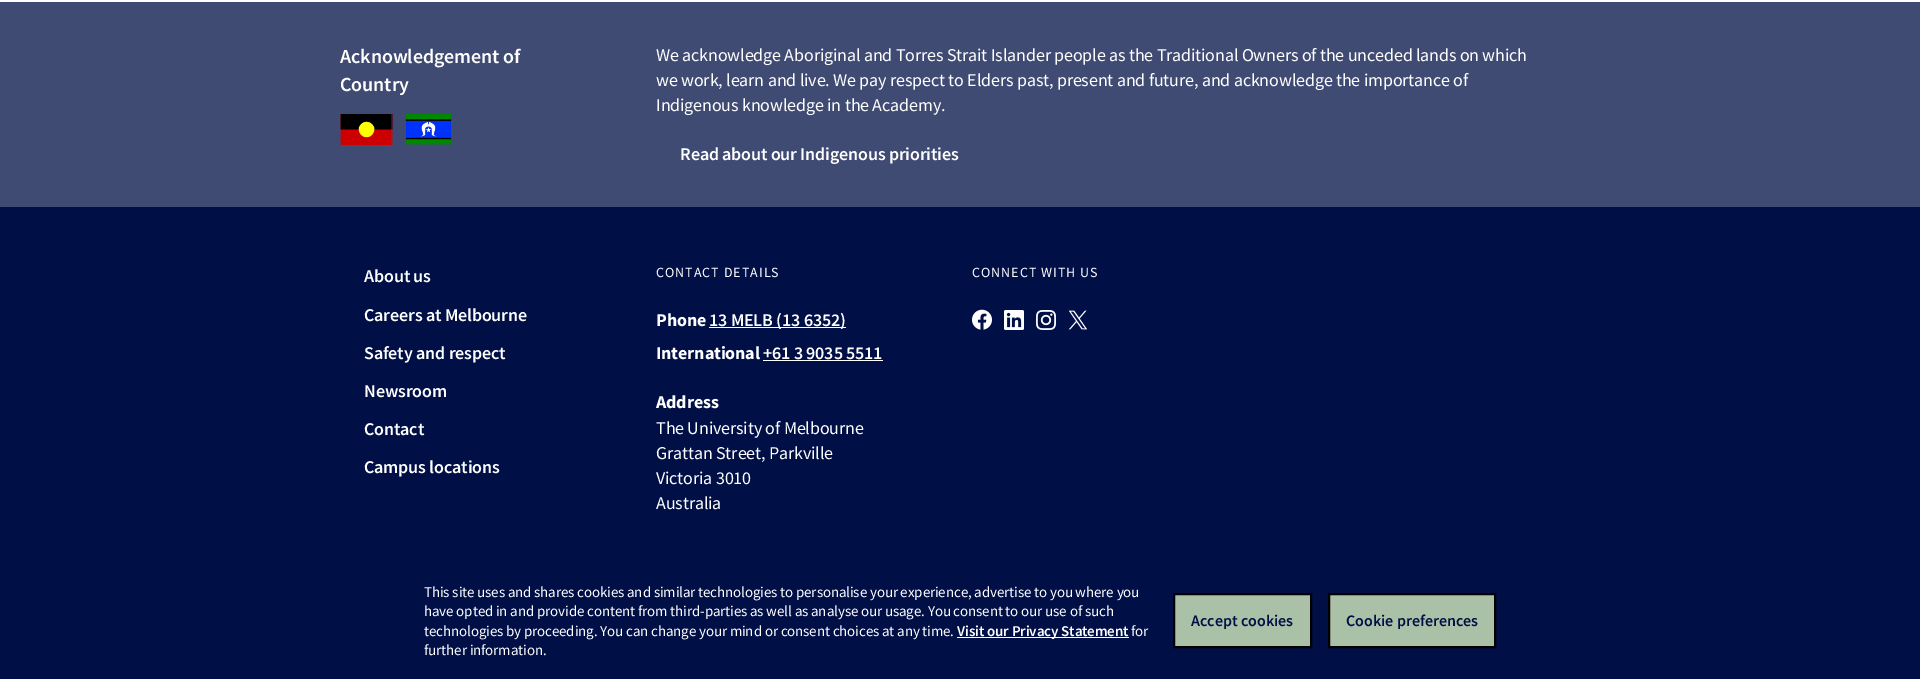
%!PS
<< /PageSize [1920 679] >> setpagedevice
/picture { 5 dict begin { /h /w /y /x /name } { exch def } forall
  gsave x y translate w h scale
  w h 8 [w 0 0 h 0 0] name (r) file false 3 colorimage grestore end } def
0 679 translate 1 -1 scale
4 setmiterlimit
1 setgray
0 0 1920 679 rectfill
0.251 0.294 0.455 setrgbcolor
0 2 1920 205 rectfill
/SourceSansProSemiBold-SemiBold [20 0 0 -20 0 0] selectfont
1 setgray
340 63 moveto -0.1 0 (Acknowledgement of) ashow
340 91 moveto -0.1 0 (Country) ashow
(img1.rgb) 340 114 53 31 picture
(img2.rgb) 405 114 47 31 picture
/SourceSansPro-Regular [18 0 0 -18 0 0] selectfont
656 61 moveto -0.14 0 (We acknowledge Aboriginal and Torres Strait Islander people as the Traditional Owners of the unceded lands on which) ashow
656 86 moveto -0.14 0 (we work, learn and live. We pay respect to Elders past, present and future, and acknowledge the importance of) ashow
656 111 moveto -0.14 0 (Indigenous knowledge in the Academy.) ashow
/SourceSansProSemiBold-SemiBold [18 0 0 -18 0 0] selectfont
680 160 moveto -0.14 0 (Read about our Indigenous priorities) ashow
0 0.059 0.275 setrgbcolor
0 207 1920 472 rectfill
1 setgray
364 282 moveto -0.14 0 (About us) ashow
364 321 moveto -0.14 0 (Careers at Melbourne) ashow
364 359 moveto -0.14 0 (Safety and respect) ashow
364 397 moveto -0.14 0 (Newsroom) ashow
364 435 moveto -0.14 0 (Contact) ashow
364 473 moveto -0.14 0 (Campus locations) ashow
/SourceSansPro-Regular [14 0 0 -14 0 0] selectfont
656 277 moveto 1 0 (CONTACT DETAILS) ashow
/SourceSansPro-Bold [18 0 0 -18 0 0] selectfont
656 326 moveto -0.14 0 (Phone) ashow
709 327 137 1 rectfill
/SourceSansProSemiBold-SemiBold [18 0 0 -18 0 0] selectfont
709 326 moveto -0.14 0 (13 MELB \(13 6352\)) ashow
/SourceSansPro-Bold [18 0 0 -18 0 0] selectfont
656 359 moveto -0.14 0 (International) ashow
/SourceSansProSemiBold-SemiBold [18 0 0 -18 0 0] selectfont
763 359 moveto -0.14 0 (+61 3 9035 5511) ashow
763 360 120 1 rectfill
/SourceSansPro-Bold [18 0 0 -18 0 0] selectfont
656 408 moveto -0.14 0 (Address) ashow
/SourceSansPro-Regular [18 0 0 -18 0 0] selectfont
656 434 moveto -0.14 0 (The University of Melbourne) ashow
656 459 moveto -0.14 0 (Grattan Street, Parkville) ashow
656 484 moveto -0.14 0 (Victoria 3010) ashow
656 509 moveto -0.14 0 (Australia) ashow
/SourceSansPro-Regular [14 0 0 -14 0 0] selectfont
972 277 moveto 1 0 (CONNECT WITH US) ashow
(img3.rgb) 972 309 20 21 picture
(img4.rgb) 1004 310 20 20 picture
(img5.rgb) 1036 310 20 20 picture
(img6.rgb) 1068 310 20 20 picture
/SourceSansPro-Regular [15 0 0 -15 0 0] selectfont
424 597 moveto -0.14 0 (This site uses and shares cookies and similar technologies to personalise your experience, advertise to you where you) ashow
424 616 moveto -0.14 0 (have opted in and provide content from third-parties as well as analyse our usage. You consent to our use of such) ashow
424 636 moveto -0.14 0 (technologies by proceeding. You can change your mind or consent choices at any time.) ashow
957 637 172 1 rectfill
/SourceSansProSemiBold-SemiBold [15 0 0 -15 0 0] selectfont
957 636 moveto -0.14 0 (Visit our Privacy Statement) ashow
/SourceSansPro-Regular [15 0 0 -15 0 0] selectfont
1131 636 moveto -0.14 0 (for) ashow
424 655 moveto -0.14 0 (further information.) ashow
0.671 0.757 0.655 setrgbcolor
newpath 1174 594 moveto 1311 594 lineto 1311 647 lineto 1174 647 lineto closepath gsave fill grestore
0 setgray
2 setlinewidth
stroke
/SourceSansProSemiBold-SemiBold [16 0 0 -16 0 0] selectfont
0 0.059 0.275 setrgbcolor
1191 626 moveto (Accept cookies) show
0.671 0.757 0.655 setrgbcolor
newpath 1329 594 moveto 1495 594 lineto 1495 647 lineto 1329 647 lineto closepath gsave fill grestore
0 setgray
stroke
0 0.059 0.275 setrgbcolor
1346 626 moveto (Cookie preferences) show
showpage
